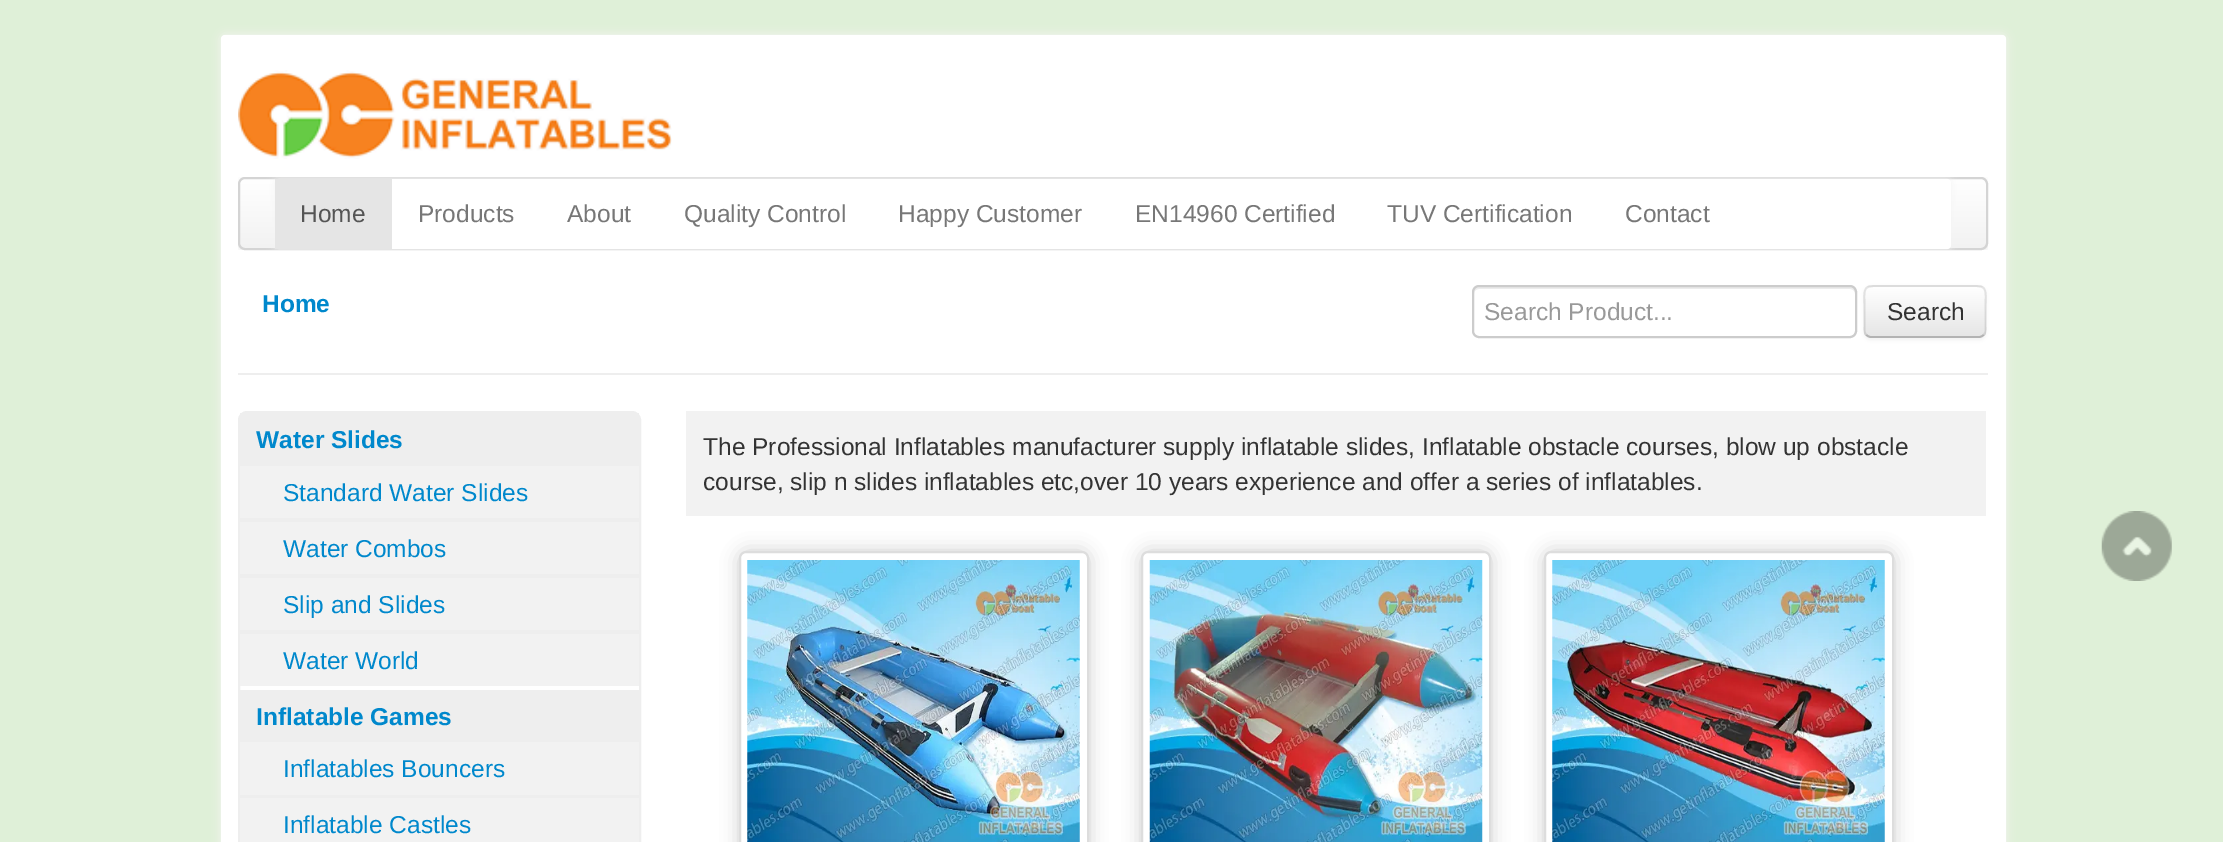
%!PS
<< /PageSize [2223 842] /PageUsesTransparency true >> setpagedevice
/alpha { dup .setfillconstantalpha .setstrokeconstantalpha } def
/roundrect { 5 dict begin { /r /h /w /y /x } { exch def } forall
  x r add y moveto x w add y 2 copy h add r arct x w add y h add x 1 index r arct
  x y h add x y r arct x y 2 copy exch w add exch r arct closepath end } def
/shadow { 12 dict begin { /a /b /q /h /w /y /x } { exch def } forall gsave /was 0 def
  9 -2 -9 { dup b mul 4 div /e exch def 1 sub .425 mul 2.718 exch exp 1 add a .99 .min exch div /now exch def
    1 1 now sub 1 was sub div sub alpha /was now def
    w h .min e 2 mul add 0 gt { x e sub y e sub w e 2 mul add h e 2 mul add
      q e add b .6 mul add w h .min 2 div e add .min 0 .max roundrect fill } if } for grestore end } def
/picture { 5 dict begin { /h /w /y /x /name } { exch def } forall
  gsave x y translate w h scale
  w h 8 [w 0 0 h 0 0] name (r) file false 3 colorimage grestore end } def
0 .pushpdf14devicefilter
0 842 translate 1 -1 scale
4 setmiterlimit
0.875 0.941 0.847 setrgbcolor
0 0 2223 842 rectfill
0.957 setgray
221 35 1785 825 4 4.5 1 shadow
1 setgray
221 35 1785 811 4 roundrect fill
(img1.rgb) 238 70 434 89 picture
gsave
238 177 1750 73 rectclip
0 setgray
238 179 1750 73 7 3.5 0.07 shadow
grestore
gsave
238 177 1750 73 7 roundrect clip newpath
gsave newpath 238 179 moveto 1988 179 lineto 1988 249 lineto 238 249 lineto closepath clip newpath
<< /ShadingType 2 /ColorSpace /DeviceRGB /Coords [1113 178 1113 249] /Extend [true true] /Function << /FunctionType 2 /Domain [0 1] /C0 [1 1 1] /C1 [0.949 0.949 0.949] /N 1 >> >> shfill grestore
grestore
0.831 setgray
2 setlinewidth
239 178 1748 71 6 roundrect stroke
gsave
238 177 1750 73 rectclip
0.957 setgray
275 179 1676 70 4 4.5 1 shadow
grestore
1 setgray
275 179 1676 70 4 roundrect fill
0.898 setgray
275 179 117 70 rectfill
/LiberationSans-Regular [24.5 0 0 -24.5 0 0] selectfont
0.333 setgray
300 222 moveto (Home) show
0.467 setgray
418 222 moveto (Products) show
567 222 moveto (About) show
684 222 moveto (Quality Control) show
898 222 moveto (Happy Customer) show
1135 222 moveto (EN14960 Certified) show
1387 222 moveto (TUV Certification) show
1625 222 moveto (Contact) show
/LiberationSans-Bold [24.5 0 0 -24.5 0 0] selectfont
0 0.533 0.8 setrgbcolor
262 312 moveto (Home) show
0.925 setgray
newpath 1479 289 moveto 1850 289 lineto 1853 289 1855 291 1855 294 curveto 1855 292 lineto 1855 289 1853 287 1850 287 curveto 1479 287 lineto 1476 287 1474 289 1474 292 curveto 1474 294 lineto 1474 291 1476 289 1479 289 curveto closepath fill
0.8 setgray
1473 286 383 51 6 roundrect stroke
/LiberationSans-Regular [24.5 0 0 -24.5 0 0] selectfont
0.6 setgray
1484 320 moveto (Search Product...) show
0 setgray
1864 287 122 53 7 2 0.05 shadow
0.961 setgray
1864 285 122 53 7 roundrect fill
gsave
1864 285 122 53 7 roundrect clip newpath
gsave newpath 1864 287 moveto 1986 287 lineto 1986 336 lineto 1864 336 lineto closepath clip newpath
<< /ShadingType 2 /ColorSpace /DeviceRGB /Coords [1925 287 1925 336] /Extend [true true] /Function << /FunctionType 2 /Domain [0 1] /C0 [1 1 1] /C1 [0.902 0.902 0.902] /N 1 >> >> shfill grestore
grestore
0.2 alpha
1 setgray
newpath 1871 289 moveto 1979 289 lineto 1982 289 1984 291 1984 294 curveto 1984 332 lineto 1984 335 lineto 1984 334 1985 332 1985 331 curveto 1985 292 lineto 1985 289 1983 287 1980 287 curveto 1871 287 lineto 1868 287 1866 289 1866 292 curveto 1866 294 lineto 1866 291 1868 289 1871 289 curveto closepath fill
1 alpha
0.702 setgray
1.8 setlinewidth
newpath 1983.5 335 moveto 1982.5 336 1981 337 1979 337 curveto 1871 337 lineto 1869 337 1867.5 336 1866.5 335 curveto stroke
0.1 alpha
0 setgray
newpath 1866.5 335 moveto 1863.5 332.5 1864.5 327.5 1864.5 324.5 curveto 1864.5 311.5 lineto 1864.5 283.5 1860.5 286 1889 286 curveto 1961 286 lineto 1989.5 286 1985.5 283.5 1985.5 311.5 curveto 1985.5 324.5 lineto 1985.5 327.5 1986.5 332.5 1983.5 335 curveto stroke
1 alpha
0.2 setgray
1887 320 moveto (Search) show
0.933 setgray
238 373 1750 2 rectfill
2 setlinewidth
239 412 401 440 8 roundrect stroke
240 413 399 221 rectfill
/LiberationSans-Bold [24.5 0 0 -24.5 0 0] selectfont
0 0.533 0.8 setrgbcolor
256 448 moveto (Water Slides) show
0.949 setgray
240 466 399 52 rectfill
/LiberationSans-Regular [24.5 0 0 -24.5 0 0] selectfont
0 0.533 0.8 setrgbcolor
283 501 moveto (Standard Water Slides) show
0.949 setgray
240 522 399 52 rectfill
0 0.533 0.8 setrgbcolor
283 557 moveto (Water Combos) show
0.949 setgray
240 578 399 52 rectfill
0 0.533 0.8 setrgbcolor
283 613 moveto (Slip and Slides) show
0.949 setgray
240 634 399 52 rectfill
0 0.533 0.8 setrgbcolor
283 669 moveto (Water World) show
0.933 setgray
240 690 399 108 rectfill
/LiberationSans-Bold [24.5 0 0 -24.5 0 0] selectfont
0 0.533 0.8 setrgbcolor
256 725 moveto (Inflatable Games) show
0.949 setgray
240 742 399 53 rectfill
/LiberationSans-Regular [24.5 0 0 -24.5 0 0] selectfont
0 0.533 0.8 setrgbcolor
283 777 moveto (Inflatables Bouncers) show
0.949 setgray
240 798 399 44 rectfill
0 0.533 0.8 setrgbcolor
283 833 moveto (Inflatable Castles) show
0.949 setgray
686 411 1300 105 rectfill
0.2 setgray
703 455 moveto (The Professional Inflatables manufacturer supply inflatable slides, Inflatable obstacle courses, blow up obstacle) show
703 490 moveto (course, slip n slides inflatables etc,over 10 years experience and offer a series of inflatables.) show
gsave
newpath 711 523 moveto 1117 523 lineto 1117 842 lineto 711 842 lineto closepath 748 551 moveto 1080 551 lineto 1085 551 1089 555 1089 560 curveto 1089 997 lineto 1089 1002 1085 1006 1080 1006 curveto 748 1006 lineto 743 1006 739 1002 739 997 curveto 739 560 lineto 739 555 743 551 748 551 curveto closepath eoclip newpath
0.8 setgray
739 551 350 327 9 9 1 shadow
grestore
0.867 setgray
740 552 348 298 6 roundrect stroke
(img2.rgb) 747 560 333 282 picture
gsave
newpath 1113 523 moveto 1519 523 lineto 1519 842 lineto 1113 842 lineto closepath 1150 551 moveto 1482 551 lineto 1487 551 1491 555 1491 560 curveto 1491 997 lineto 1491 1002 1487 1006 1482 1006 curveto 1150 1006 lineto 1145 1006 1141 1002 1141 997 curveto 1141 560 lineto 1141 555 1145 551 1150 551 curveto closepath eoclip newpath
0.8 setgray
1141 551 350 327 9 9 1 shadow
grestore
1142 552 348 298 6 roundrect stroke
(img3.rgb) 1149 560 334 282 picture
gsave
newpath 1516 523 moveto 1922 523 lineto 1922 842 lineto 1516 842 lineto closepath 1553 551 moveto 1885 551 lineto 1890 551 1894 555 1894 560 curveto 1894 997 lineto 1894 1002 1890 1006 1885 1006 curveto 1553 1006 lineto 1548 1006 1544 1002 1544 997 curveto 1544 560 lineto 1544 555 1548 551 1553 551 curveto closepath eoclip newpath
0.8 setgray
1544 551 350 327 9 9 1 shadow
grestore
1545 552 348 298 6 roundrect stroke
(img4.rgb) 1552 560 333 282 picture
(img5.rgb) 2101 511 71 70 picture
.poppdf14devicefilter showpage
